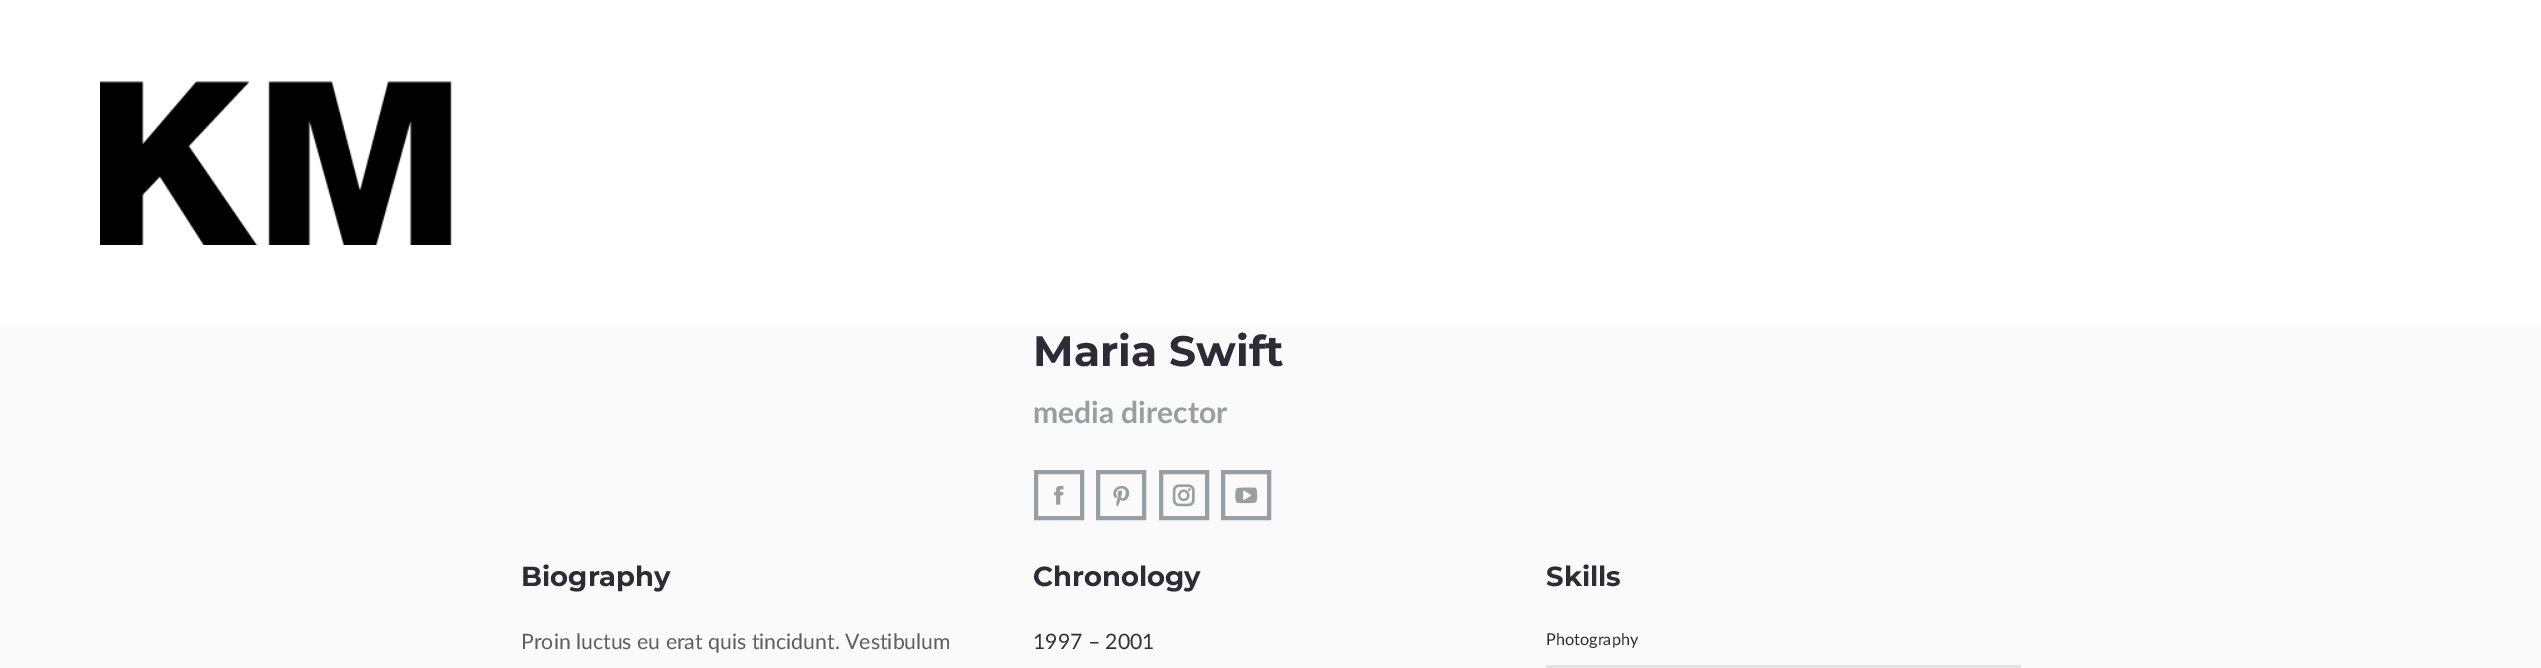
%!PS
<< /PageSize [2541 668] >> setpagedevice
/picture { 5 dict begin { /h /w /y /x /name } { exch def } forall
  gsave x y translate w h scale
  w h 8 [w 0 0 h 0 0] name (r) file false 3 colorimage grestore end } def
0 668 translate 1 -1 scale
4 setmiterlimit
0.984 0.98 0.98 setrgbcolor
0 0 2541 668 rectfill
1 setgray
0 0 2541 325 rectfill
(img1.rgb) 100 81 352 164 picture
/Montserrat-Bold [42.5 0 0 -42.5 0 0] selectfont
0.18 0.169 0.212 setrgbcolor
1033 366 moveto (Maria Swift) show
/Lato-Bold [30 0 0 -30 0 0] selectfont
0.592 0.624 0.639 setrgbcolor
1033 423 moveto (media director) show
4 setlinewidth
1036 472 46 46 rectstroke
(img2.rgb) 1054 485 10 20 picture
1098 472 46 46 rectstroke
(img3.rgb) 1113 486 17 21 picture
1161 472 46 46 rectstroke
(img4.rgb) 1172 484 23 23 picture
1223 472 46 46 rectstroke
(img5.rgb) 1235 487 23 17 picture
/Montserrat-Bold [27.5 0 0 -27.5 0 0] selectfont
0.18 0.169 0.212 setrgbcolor
521 586 moveto (Biography) show
/Lato-Regular [21.25 0 0 -21.25 0 0] selectfont
0.369 setgray
521 649 moveto (Proin luctus eu erat quis tincidunt. Vestibulum) show
/Montserrat-Bold [27.5 0 0 -27.5 0 0] selectfont
0.18 0.169 0.212 setrgbcolor
1033 586 moveto (Chronology) show
/Lato-Regular [21.25 0 0 -21.25 0 0] selectfont
0.2 setgray
1033 649 moveto (1997 – 2001) show
/Montserrat-Bold [27.5 0 0 -27.5 0 0] selectfont
0.18 0.169 0.212 setrgbcolor
1546 586 moveto (Skills) show
/Lato-Regular [16.25 0 0 -16.25 0 0] selectfont
1546 645 moveto (Photography) show
0.89 setgray
1546 665 475 3 rectfill
showpage
